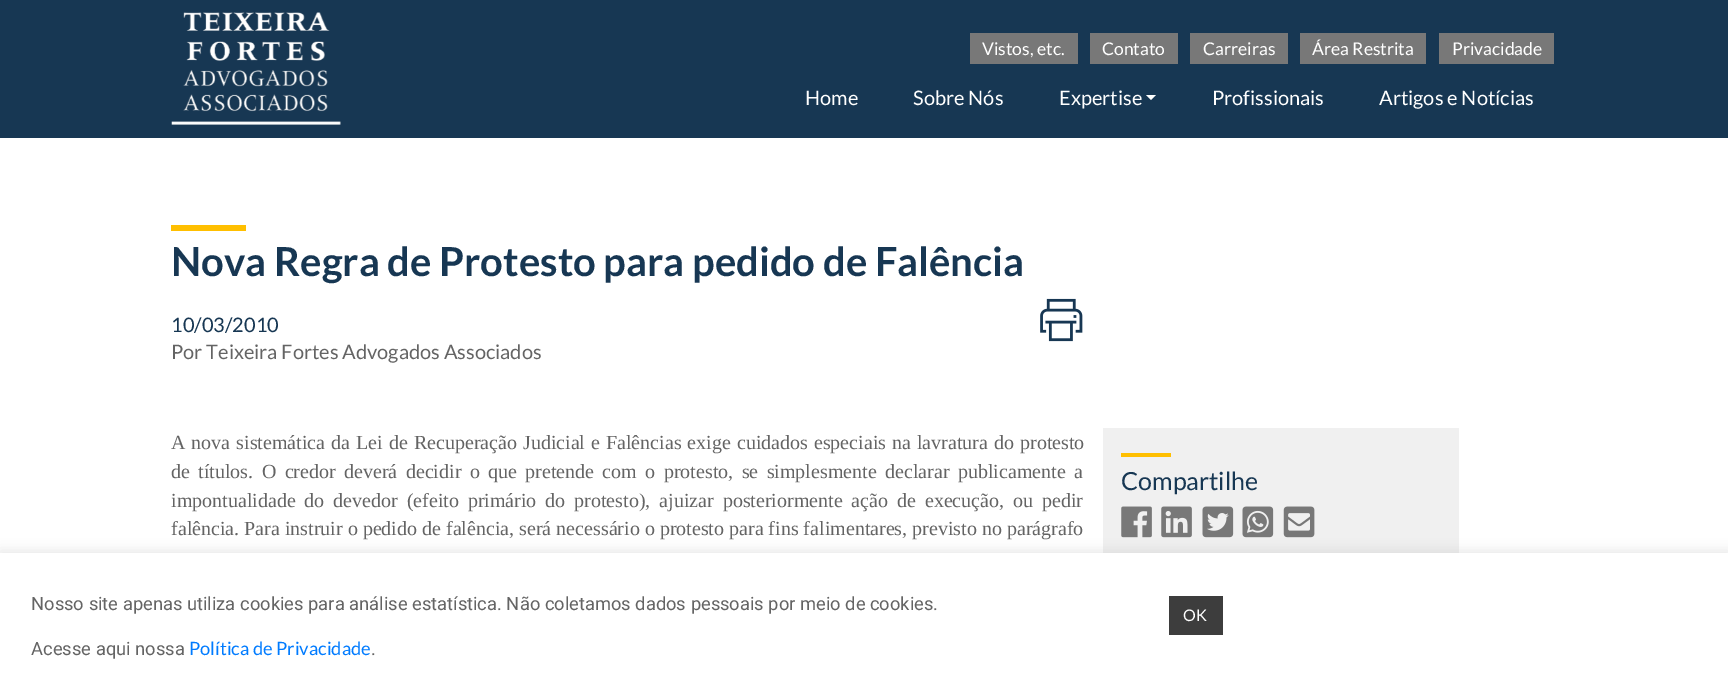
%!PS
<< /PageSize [1728 677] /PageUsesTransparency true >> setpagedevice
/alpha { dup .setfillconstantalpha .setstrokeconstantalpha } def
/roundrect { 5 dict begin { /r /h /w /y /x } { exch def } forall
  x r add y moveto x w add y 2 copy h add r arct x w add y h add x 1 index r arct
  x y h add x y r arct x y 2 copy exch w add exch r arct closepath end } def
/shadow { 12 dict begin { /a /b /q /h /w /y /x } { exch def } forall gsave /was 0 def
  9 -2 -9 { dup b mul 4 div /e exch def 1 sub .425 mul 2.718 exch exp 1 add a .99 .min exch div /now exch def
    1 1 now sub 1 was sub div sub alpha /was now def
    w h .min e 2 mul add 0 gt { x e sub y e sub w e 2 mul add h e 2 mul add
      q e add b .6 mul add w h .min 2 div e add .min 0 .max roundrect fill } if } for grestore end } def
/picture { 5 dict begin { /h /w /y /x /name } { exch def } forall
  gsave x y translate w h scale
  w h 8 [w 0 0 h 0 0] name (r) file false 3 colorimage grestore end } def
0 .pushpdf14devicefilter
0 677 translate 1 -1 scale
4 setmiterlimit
1 setgray
0 0 1728 677 rectfill
0.09 0.216 0.325 setrgbcolor
0 0 1728 138 rectfill
(img1.rgb) 171 12 170 113 picture
0.471 setgray
970 33 108 31 rectfill
/Lato-Regular [17.5 0 0 -17.5 0 0] selectfont
1 setgray
982 55 moveto (Vistos, etc.) show
0.471 setgray
1090 33 88 31 rectfill
1 setgray
1102 55 moveto (Contato) show
0.471 setgray
1190 33 98 31 rectfill
1 setgray
1203 55 moveto (Carreiras) show
0.471 setgray
1300 33 126 31 rectfill
1 setgray
1312 55 moveto (Área Restrita) show
0.471 setgray
1439 33 115 31 rectfill
1 setgray
1452 55 moveto (Privacidade) show
/Lato-Regular [20 0 0 -20 0 0] selectfont
805 105 moveto (Home) show
913 105 moveto (Sobre Nós) show
1059 105 moveto (Expertise) show
newpath 1146 95 moveto 1156 95 lineto 1151 100 lineto closepath fill
1212 105 moveto (Profissionais) show
1379 105 moveto (Artigos e Notícias) show
1 0.749 0 setrgbcolor
171 225 75 6 rectfill
/Lato-Bold [40 0 0 -40 0 0] selectfont
0.09 0.216 0.325 setrgbcolor
171 276 moveto (Nova Regra de Protesto para pedido de Falência) show
/Lato-Regular [20 0 0 -20 0 0] selectfont
171 332 moveto (10/03/2010) show
0.392 setgray
171 359 moveto (Por Teixeira Fortes Advogados Associados) show
(img2.rgb) 1040 298 43 44 picture
/LiberationSerif-Regular [20 0 0 -20 0 0] selectfont
171 449 moveto 1 0 32 (A nova sistemática da Lei de Recuperação Judicial e Falências exige cuidados especiais na lavratura do protesto) widthshow
171 478 moveto 3.4 0 32 (de títulos. O credor deverá decidir o que pretende com o protesto, se simplesmente declarar publicamente a) widthshow
171 507 moveto 3.9 0 32 (impontualidade do devedor \(efeito primário do protesto\), ajuizar posteriormente ação de execução, ou pedir) widthshow
171 535 moveto (falência. Para instruir o pedido de falência, será necessário o protesto para fins falimentares, previsto no parágrafo) show
0.941 setgray
1103 428 356 125 rectfill
1 0.749 0 setrgbcolor
1121 453 50 4 rectfill
/Lato-Regular [25 0 0 -25 0 0] selectfont
0.09 0.216 0.325 setrgbcolor
1121 490 moveto (Compartilhe) show
(img3.rgb) 1121 506 31 32 picture
(img4.rgb) 1161 506 31 32 picture
(img5.rgb) 1202 506 32 32 picture
(img6.rgb) 1242 506 32 32 picture
(img7.rgb) 1283 506 32 32 picture
0.675 0.671 0.671 setrgbcolor
0 551 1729 125 0 6 0.3 shadow
1 setgray
0 553 1728 124 rectfill
/Roboto-Regular [18.35 0 0 -18.35 0 0] selectfont
0.392 setgray
31 610 moveto (Nosso site apenas utiliza cookies para análise estatística. Não coletamos dados pessoais por meio de cookies.) show
31 655 moveto (Acesse aqui nossa) show
/Lato-Regular [18.35 0 0 -18.35 0 0] selectfont
0 0.482 1 setrgbcolor
189 655 moveto (Política de Privacidade) show
/Roboto-Regular [18.35 0 0 -18.35 0 0] selectfont
0.392 setgray
371 655 moveto (.) show
0.239 setgray
1169 596 54 39 rectfill
/Lato-Regular [16 0 0 -16 0 0] selectfont
1 setgray
1183 621 moveto (OK) show
.poppdf14devicefilter showpage
